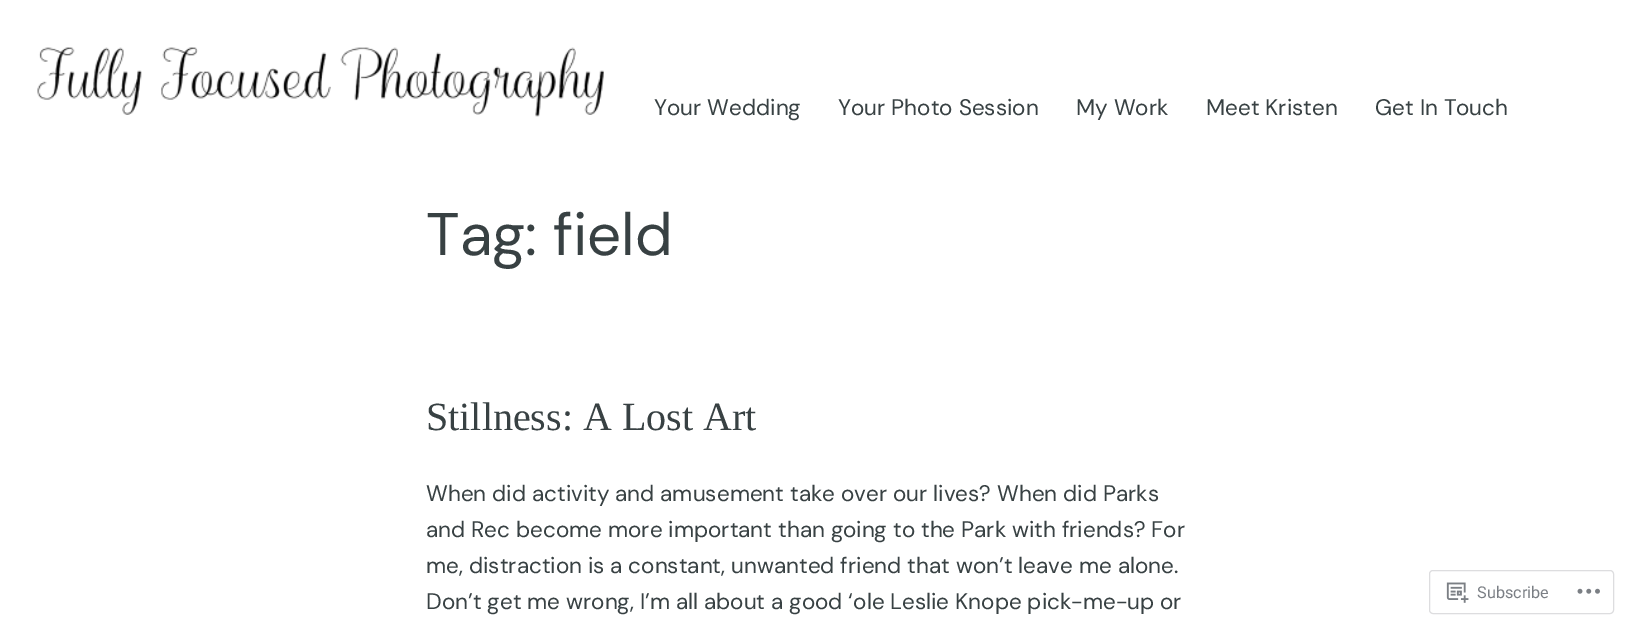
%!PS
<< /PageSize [1626 626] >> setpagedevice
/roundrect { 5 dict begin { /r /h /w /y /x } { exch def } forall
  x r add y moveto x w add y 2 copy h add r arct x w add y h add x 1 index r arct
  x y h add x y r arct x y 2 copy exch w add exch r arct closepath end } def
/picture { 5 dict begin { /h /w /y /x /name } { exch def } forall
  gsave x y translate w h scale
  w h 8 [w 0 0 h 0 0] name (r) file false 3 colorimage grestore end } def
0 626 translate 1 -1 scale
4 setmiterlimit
1 setgray
0 0 1626 626 rectfill
(img1.rgb) 37 47 567 70 picture
/DMSans-Regular [22.5 0 0 -22.5 0 0] selectfont
0.22 0.255 0.263 setrgbcolor
654 115 moveto (Your Wedding) show
838 115 moveto (Your Photo Session) show
1076 115 moveto (My Work) show
1206 115 moveto (Meet Kristen) show
1375 115 moveto (Get In Touch) show
/DMSans-Regular [60 0 0 -60 0 0] selectfont
426 255 moveto (Tag: field) show
/LiberationSerif-Regular [40 0 0 -40 0 0] selectfont
426 430 moveto (Stillness: A Lost Art) show
/DMSans-Regular [22.5 0 0 -22.5 0 0] selectfont
426 501 moveto (When did activity and amusement take over our lives? When did Parks) show
426 537 moveto (and Rec become more important than going to the Park with friends? For) show
426 573 moveto (me, distraction is a constant, unwanted friend that won’t leave me alone.) show
426 609 moveto (Don’t get me wrong, I’m all about a good ‘ole Leslie Knope pick-me-up or) show
0.867 0.867 0.875 setrgbcolor
1429.5 570.5 184 43 3.5 roundrect stroke
(img2.rgb) 1446 582 23 21 picture
/Roboto-Regular [16.25 0 0 -16.25 0 0] selectfont
0.482 0.498 0.522 setrgbcolor
1477 598 moveto (Subscribe) show
(img3.rgb) 1577 588 23 6 picture
showpage
